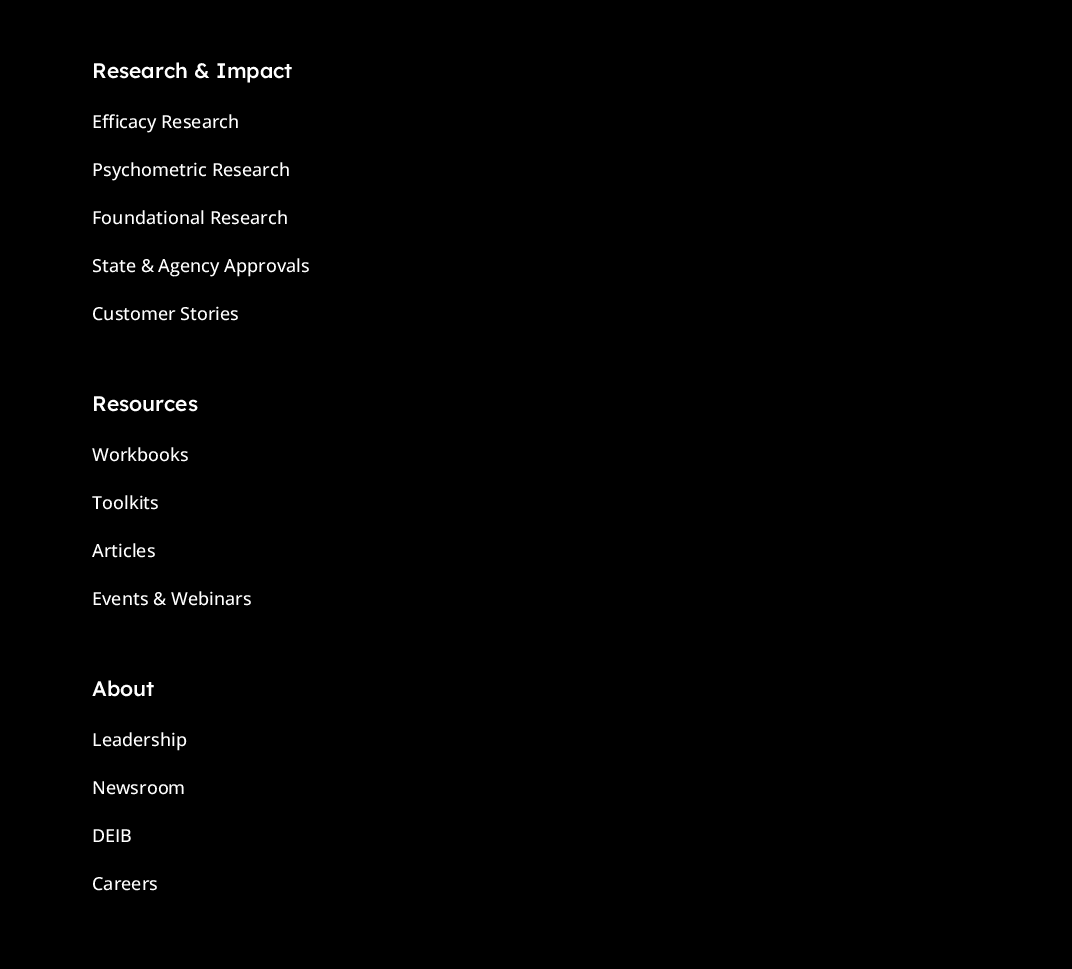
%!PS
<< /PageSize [1072 969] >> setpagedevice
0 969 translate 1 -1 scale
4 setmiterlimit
0 setgray
0 0 1072 969 rectfill
/Lexend-Medium [21 0 0 -21 0 0] selectfont
1 setgray
92 78 moveto (Research & Impact) show
/OpenSans-Medium [18 0 0 -18 0 0] selectfont
92 128 moveto (Efficacy Research) show
92 176 moveto (Psychometric Research) show
92 224 moveto (Foundational Research) show
92 272 moveto (State & Agency Approvals) show
92 320 moveto (Customer Stories) show
/Lexend-Medium [21 0 0 -21 0 0] selectfont
92 411 moveto (Resources) show
/OpenSans-Medium [18 0 0 -18 0 0] selectfont
92 461 moveto (Workbooks) show
92 509 moveto (Toolkits) show
92 557 moveto (Articles) show
92 605 moveto (Events & Webinars) show
/Lexend-Medium [21 0 0 -21 0 0] selectfont
92 696 moveto (About) show
/OpenSans-Medium [18 0 0 -18 0 0] selectfont
92 746 moveto (Leadership) show
92 794 moveto (Newsroom) show
92 842 moveto (DEIB) show
92 890 moveto (Careers) show
showpage
